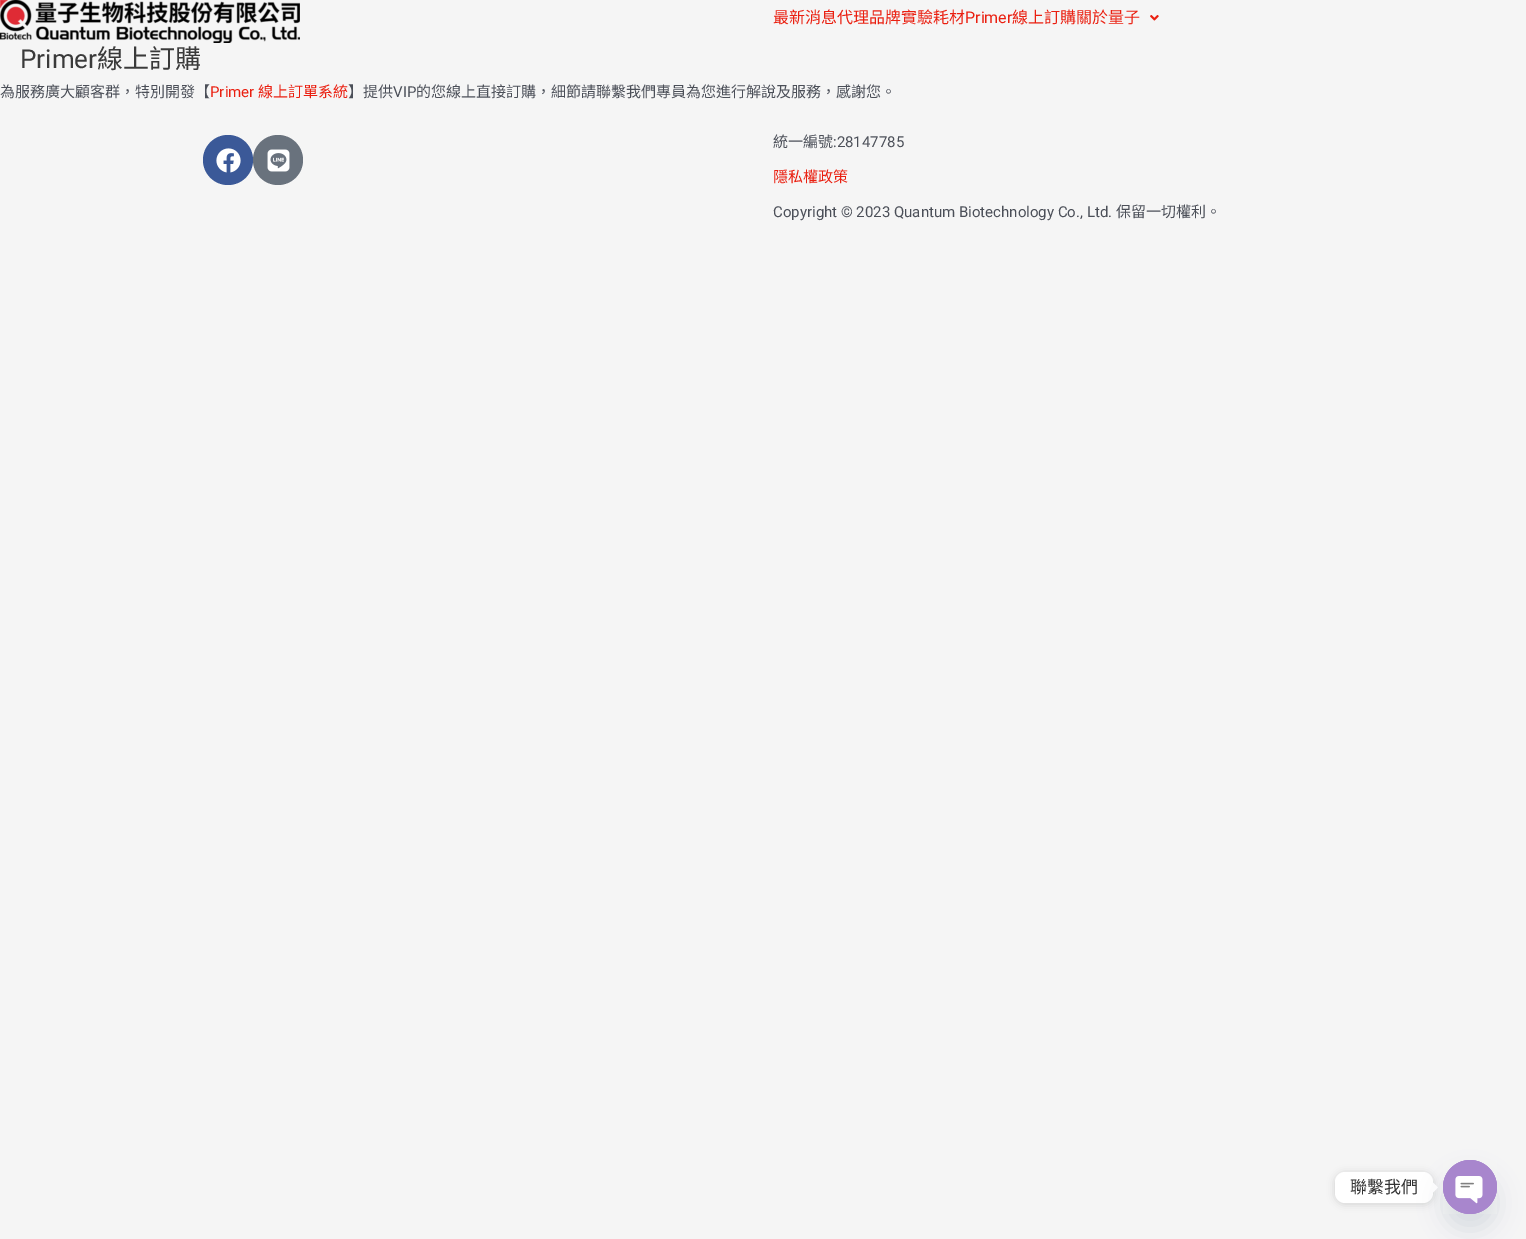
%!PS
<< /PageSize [1526 1239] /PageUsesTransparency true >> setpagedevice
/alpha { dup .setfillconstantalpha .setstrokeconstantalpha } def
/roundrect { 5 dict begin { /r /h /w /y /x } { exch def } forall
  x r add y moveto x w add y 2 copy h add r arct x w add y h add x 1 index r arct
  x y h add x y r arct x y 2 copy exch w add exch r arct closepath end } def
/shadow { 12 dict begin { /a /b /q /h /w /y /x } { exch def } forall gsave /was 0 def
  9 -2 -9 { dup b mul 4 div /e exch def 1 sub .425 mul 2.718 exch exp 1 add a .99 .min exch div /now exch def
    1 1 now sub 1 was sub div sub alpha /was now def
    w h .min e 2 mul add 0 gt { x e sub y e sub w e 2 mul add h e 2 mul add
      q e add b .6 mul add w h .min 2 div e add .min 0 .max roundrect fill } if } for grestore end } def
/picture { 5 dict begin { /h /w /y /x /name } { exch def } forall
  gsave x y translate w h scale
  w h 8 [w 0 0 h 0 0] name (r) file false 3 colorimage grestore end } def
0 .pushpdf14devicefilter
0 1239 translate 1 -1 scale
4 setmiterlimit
0.961 setgray
0 0 1526 1239 rectfill
(img1.rgb) 0 0 300 43 picture
/NotoSansCJKTC-Regular [16 0 0 -16 0 0] selectfont
0.918 0.122 0.063 setrgbcolor
773 23 moveto (最新消息代理品牌實驗耗材) show
/Roboto-Regular [16 0 0 -16 0 0] selectfont
965 23 moveto (Primer) show
/NotoSansCJKTC-Regular [16 0 0 -16 0 0] selectfont
1012 23 moveto (線上訂購關於量子) show
(img2.rgb) 1150 15 9 6 picture
/Roboto-Regular [26 0 0 -26 0 0] selectfont
0.227 setgray
20 68 moveto (Primer) show
/NotoSansCJKTC-Regular [26 0 0 -26 0 0] selectfont
97 68 moveto (線上訂購) show
/NotoSansCJKTC-Regular [15 0 0 -15 0 0] selectfont
0.294 0.31 0.345 setrgbcolor
0 97 moveto (為服務廣大顧客群，特別開發【) show
/Roboto-Regular [15 0 0 -15 0 0] selectfont
0.918 0.122 0.063 setrgbcolor
210 97 moveto (Primer) show
/NotoSansCJKTC-Regular [15 0 0 -15 0 0] selectfont
258 97 moveto (線上訂單系統) show
0.294 0.31 0.345 setrgbcolor
348 97 moveto (】提供) show
/Roboto-Regular [15 0 0 -15 0 0] selectfont
393 97 moveto (VIP) show
/NotoSansCJKTC-Regular [15 0 0 -15 0 0] selectfont
416 97 moveto (的您線上直接訂購，細節請聯繫我們專員為您進行解說及服務，感謝您。) show
0.231 0.349 0.596 setrgbcolor
newpath 228 160 25 0 360 arc closepath fill
(img3.rgb) 216 148 25 25 picture
0.412 0.447 0.49 setrgbcolor
newpath 278 160 25 0 360 arc closepath fill
(img4.rgb) 267 149 23 23 picture
0.294 0.31 0.345 setrgbcolor
773 147 moveto (統一編號) show
/Roboto-Regular [15 0 0 -15 0 0] selectfont
833 147 moveto (:28147785) show
/NotoSansCJKTC-Regular [15 0 0 -15 0 0] selectfont
0.918 0.122 0.063 setrgbcolor
773 182 moveto (隱私權政策) show
/Roboto-Regular [15 0 0 -15 0 0] selectfont
0.294 0.31 0.345 setrgbcolor
773 217 moveto (Copyright © 2023 Quantum Biotechnology Co., Ltd.) show
/NotoSansCJKTC-Regular [15 0 0 -15 0 0] selectfont
1116 217 moveto (保留一切權利。) show
0 setgray
1335 1173 98 31 10 4 0.15 shadow
1 setgray
1335 1172 98 31 10 roundrect fill
/NotoSansCJKTC-Regular [17 0 0 -17 0 0] selectfont
0.2 setgray
1350 1193 moveto (聯繫我們) show
1 setgray
newpath 1433 1192.5 moveto 1433 1182.5 lineto 1438 1187.5 lineto closepath fill
0.286 0.408 0.494 setrgbcolor
1443 1176 54 54 27 12 0.16 shadow
(img5.rgb) 1443 1160 54 54 picture
.poppdf14devicefilter showpage
